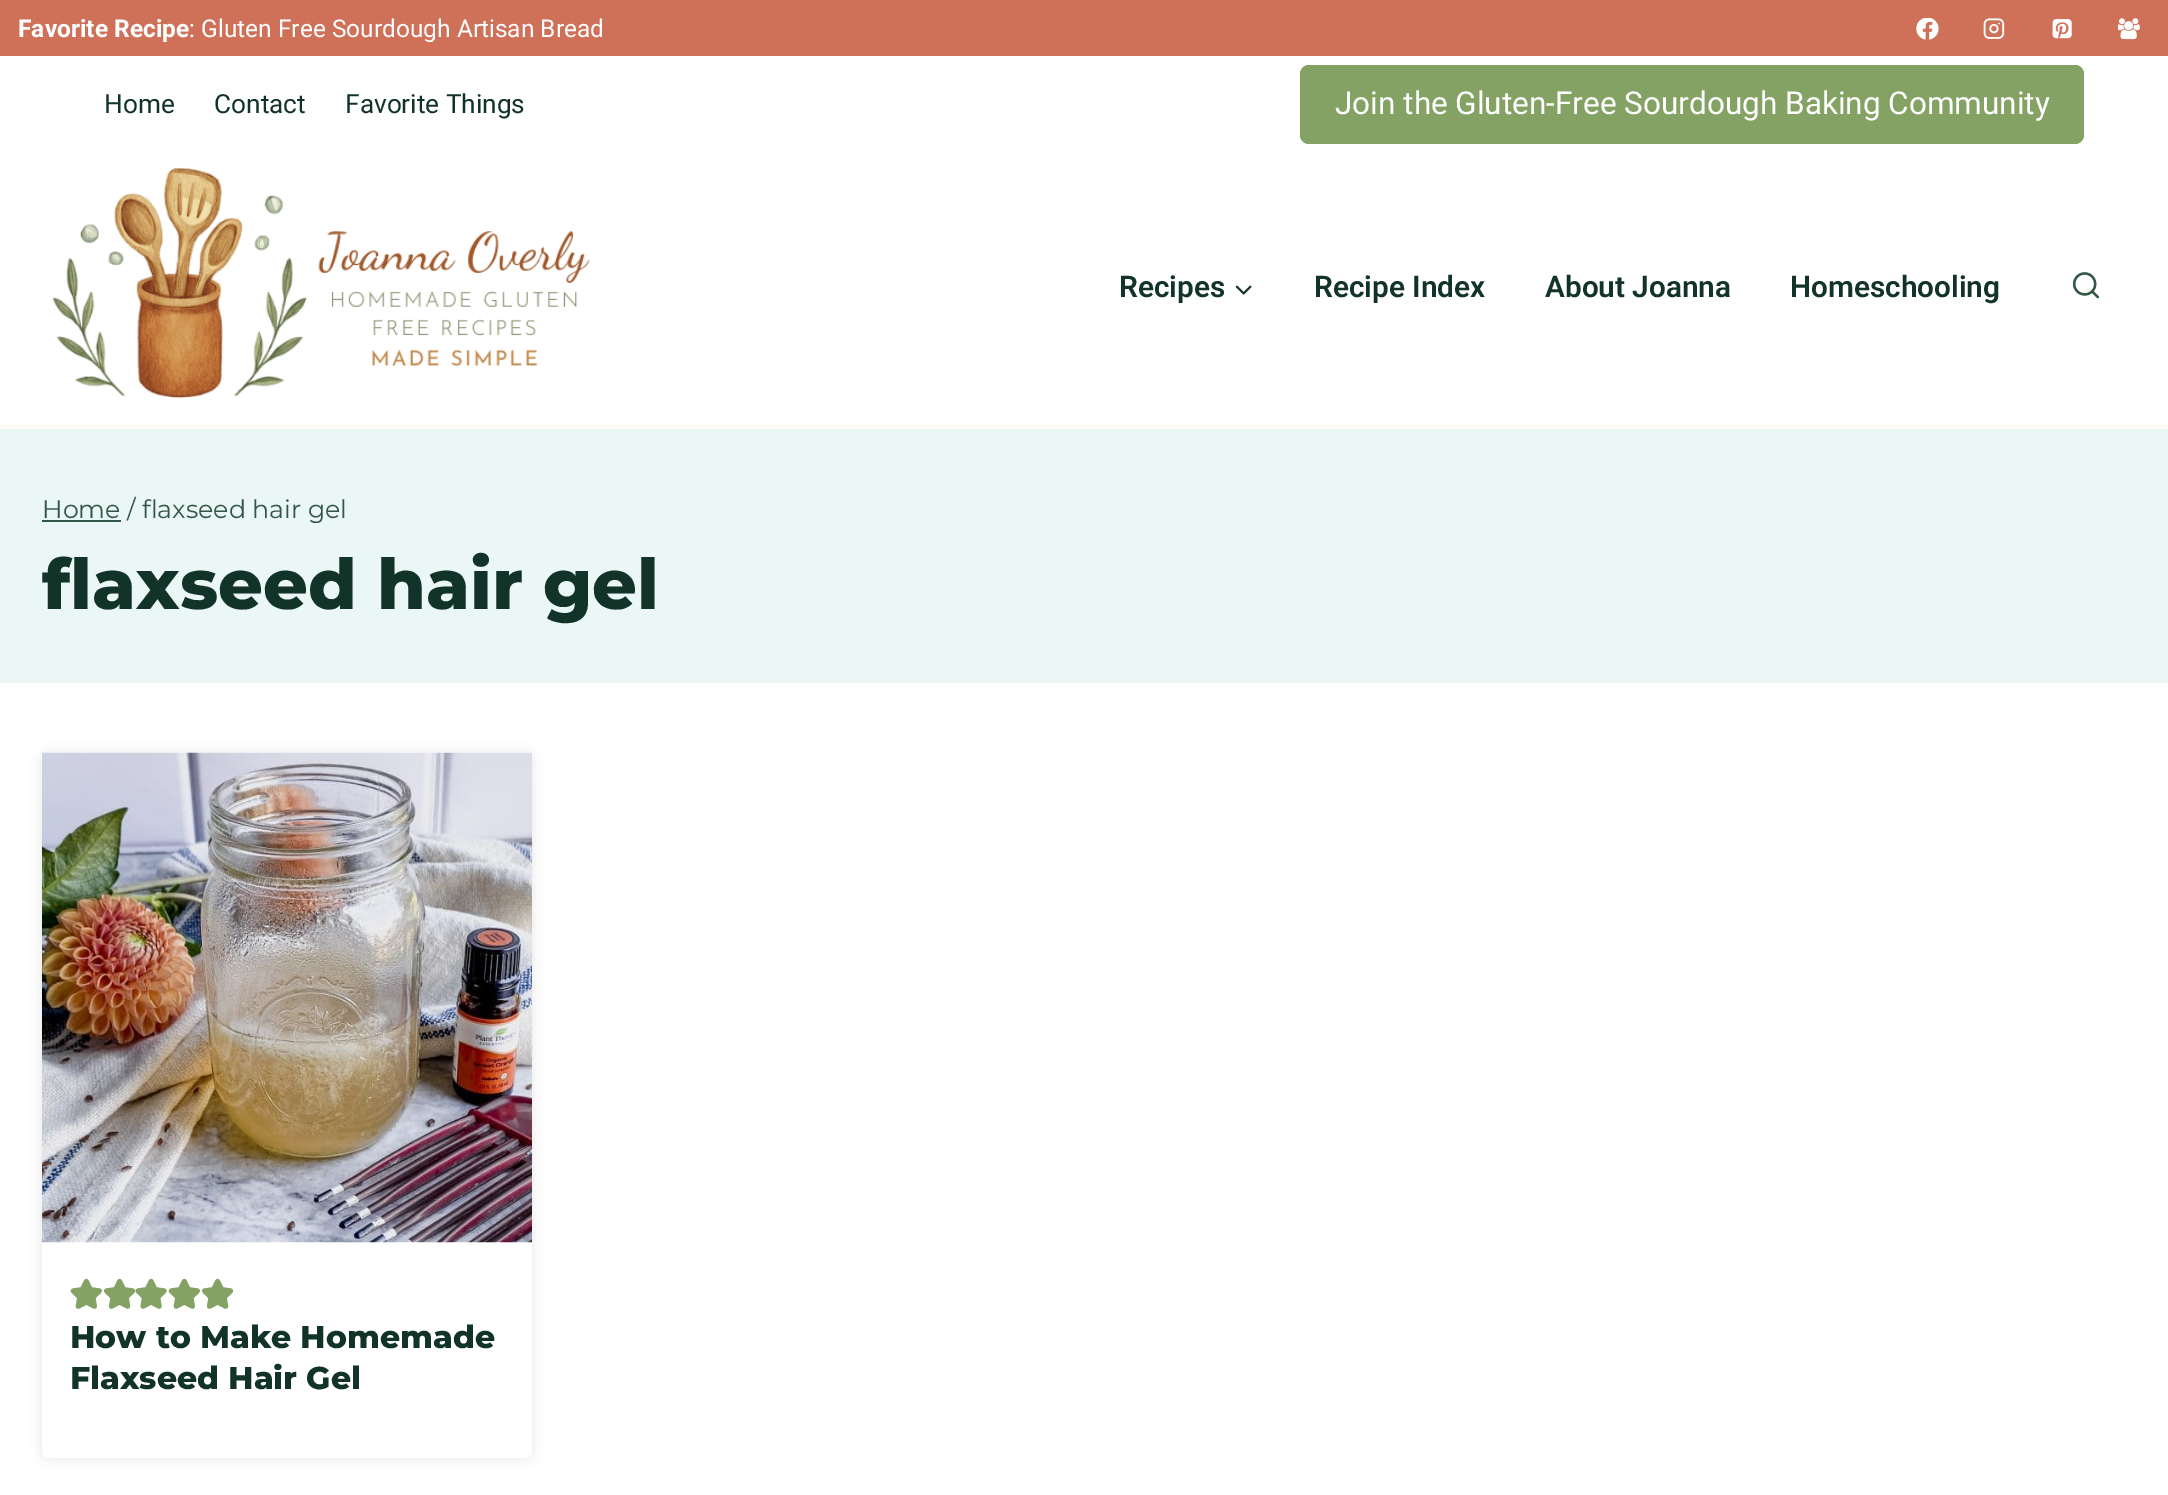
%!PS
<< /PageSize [2168 1495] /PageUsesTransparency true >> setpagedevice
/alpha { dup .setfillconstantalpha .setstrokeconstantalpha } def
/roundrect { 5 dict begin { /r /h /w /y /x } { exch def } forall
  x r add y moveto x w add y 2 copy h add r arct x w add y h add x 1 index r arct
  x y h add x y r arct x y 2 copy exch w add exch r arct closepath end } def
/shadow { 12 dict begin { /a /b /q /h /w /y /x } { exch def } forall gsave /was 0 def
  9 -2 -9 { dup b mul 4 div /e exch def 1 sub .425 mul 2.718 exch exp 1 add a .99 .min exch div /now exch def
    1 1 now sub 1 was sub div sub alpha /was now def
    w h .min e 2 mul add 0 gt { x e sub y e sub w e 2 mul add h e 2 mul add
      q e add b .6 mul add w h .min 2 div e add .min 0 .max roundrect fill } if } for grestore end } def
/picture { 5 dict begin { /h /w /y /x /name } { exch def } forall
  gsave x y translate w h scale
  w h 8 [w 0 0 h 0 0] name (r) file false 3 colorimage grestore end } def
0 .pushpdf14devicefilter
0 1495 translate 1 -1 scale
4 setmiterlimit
1 setgray
0 0 2168 1495 rectfill
0.812 0.443 0.349 setrgbcolor
0 0 2168 56 rectfill
/Roboto-Bold [24.5 0 0 -24.5 0 0] selectfont
1 setgray
18 37 moveto (Favorite Recipe) show
/Roboto-Regular [24.5 0 0 -24.5 0 0] selectfont
189 37 moveto (: Gluten Free Sourdough Artisan Bread) show
(img1.rgb) 1916 18 23 22 picture
(img2.rgb) 1983 18 22 21 picture
(img3.rgb) 2052 19 20 20 picture
(img4.rgb) 2118 18 22 22 picture
/Roboto-Regular [26.25 0 0 -26.25 0 0] selectfont
0.067 0.2 0.157 setrgbcolor
104 113 moveto (Home) show
214 113 moveto (Contact) show
345 113 moveto (Favorite Things) show
0.518 0.635 0.392 setrgbcolor
1300 65 784 79 9 roundrect fill
/Roboto-Regular [31.5 0 0 -31.5 0 0] selectfont
1 setgray
1335 114 moveto (Join the Gluten-Free Sourdough Baking Community) show
0.992 0.984 0.953 setrgbcolor
0 424 2168 5 rectfill
(img5.rgb) 52 168 538 231 picture
/Roboto-SemiBold [29.75 0 0 -29.75 0 0] selectfont
0.067 0.2 0.157 setrgbcolor
1119 297 moveto (Recipes) show
(img6.rgb) 1235 285 17 10 picture
1314 297 moveto (Recipe Index) show
1545 297 moveto (About Joanna) show
1790 297 moveto (Homeschooling) show
(img7.rgb) 2072 272 28 27 picture
0.922 0.965 0.969 setrgbcolor
0 429 2168 254 rectfill
0.2 0.341 0.278 setrgbcolor
42 520 79 2 rectfill
/Montserrat-Thin [25.25 0 0 -25.25 0 0] selectfont
42 518 moveto (Home / flaxseed hair gel) show
/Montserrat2-Thin [70 0 0 -70 0 0] selectfont
0.067 0.2 0.157 setrgbcolor
42 609 moveto (flaxseed hair gel) show
0 setgray
42 753 490 705 7 6 0.1 shadow
1 setgray
42 753 490 705 7 roundrect fill
(img8.rgb) 42 752 490 491 picture
(img9.rgb) 70 1278 32 31 picture
(img10.rgb) 104 1278 31 31 picture
(img11.rgb) 135 1278 32 31 picture
(img9.rgb) 168 1278 32 31 picture
(img10.rgb) 202 1278 31 31 picture
/Montserrat2-Thin [31.5 0 0 -31.5 0 0] selectfont
0.067 0.2 0.157 setrgbcolor
70 1348 moveto (How to Make Homemade) show
70 1389 moveto (Flaxseed Hair Gel) show
.poppdf14devicefilter showpage
